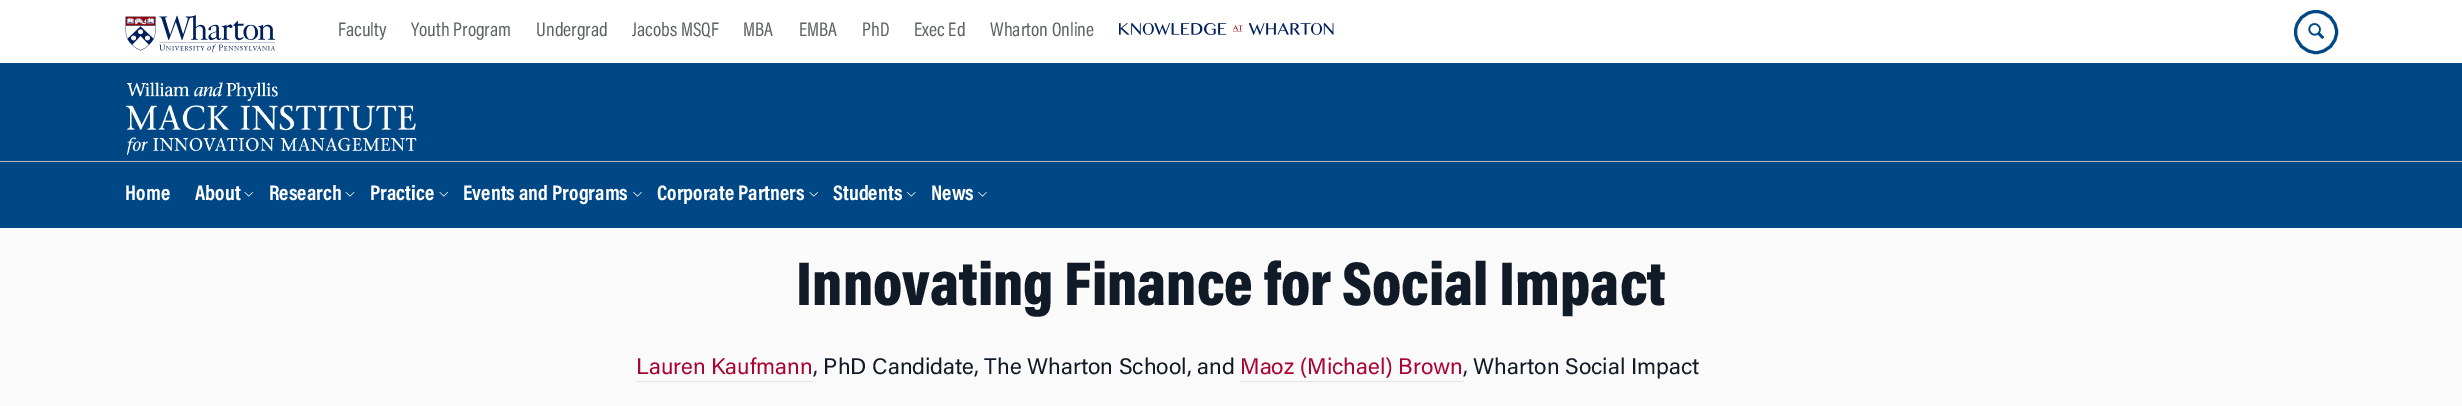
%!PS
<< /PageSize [2462 406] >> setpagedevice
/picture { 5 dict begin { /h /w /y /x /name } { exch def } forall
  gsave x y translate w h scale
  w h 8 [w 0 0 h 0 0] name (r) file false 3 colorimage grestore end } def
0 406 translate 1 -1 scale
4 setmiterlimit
0.98 setgray
0 0 2462 406 rectfill
1 setgray
0 0 2462 63 rectfill
(img1.rgb) 125 15 150 38 picture
/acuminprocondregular-Regular [19.75 0 0 -19.75 0 0] selectfont
0.361 0.384 0.4 setrgbcolor
338 36 moveto (Faculty) show
411 36 moveto (Youth Program) show
536 36 moveto (Undergrad) show
632 36 moveto (Jacobs MSQF) show
743 36 moveto (MBA) show
799 36 moveto (EMBA) show
862 36 moveto (PhD) show
914 36 moveto (Exec Ed) show
990 36 moveto (Wharton Online) show
(img2.rgb) 1119 23 215 12 picture
0 0.278 0.522 setrgbcolor
3 setlinewidth
newpath 2316 32 20.5 0 360 arc closepath stroke
(img3.rgb) 2308 23 17 16 picture
0 63 2462 165 rectfill
0.706 0.718 0.745 setrgbcolor
0 161 2462 1 rectfill
(img4.rgb) 126 82 291 73 picture
/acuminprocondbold-Bold [21.25 0 0 -21.25 0 0] selectfont
1 setgray
125 200 moveto (Home) show
195 200 moveto (About) show
(img5.rgb) 244 192 9 5 picture
269 200 moveto (Research) show
(img6.rgb) 345 192 10 5 picture
370 200 moveto (Practice) show
(img5.rgb) 439 192 9 5 picture
463 200 moveto (Events and Programs) show
(img7.rgb) 633 192 9 5 picture
657 200 moveto (Corporate Partners) show
(img5.rgb) 809 192 9 5 picture
833 200 moveto (Students) show
(img8.rgb) 907 192 9 5 picture
931 200 moveto (News) show
(img7.rgb) 978 192 9 5 picture
/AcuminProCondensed-Black [62.5 0 0 -62.5 0 0] selectfont
0.067 0.106 0.153 setrgbcolor
796 305 moveto (Innovating Finance for Social Impact) show
/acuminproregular-Regular [22.5 0 0 -22.5 0 0] selectfont
0.663 0.02 0.2 setrgbcolor
636 374 moveto (Lauren Kaufmann) show
0.894 0.898 0.906 setrgbcolor
636 381 177 1 rectfill
0.067 0.106 0.153 setrgbcolor
813 374 moveto (, PhD Candidate, The Wharton School, and) show
0.663 0.02 0.2 setrgbcolor
1240 374 moveto (Maoz \(Michael\) Brown) show
0.894 0.898 0.906 setrgbcolor
1240 381 224 1 rectfill
0.067 0.106 0.153 setrgbcolor
1463 374 moveto (, Wharton Social Impact) show
showpage
